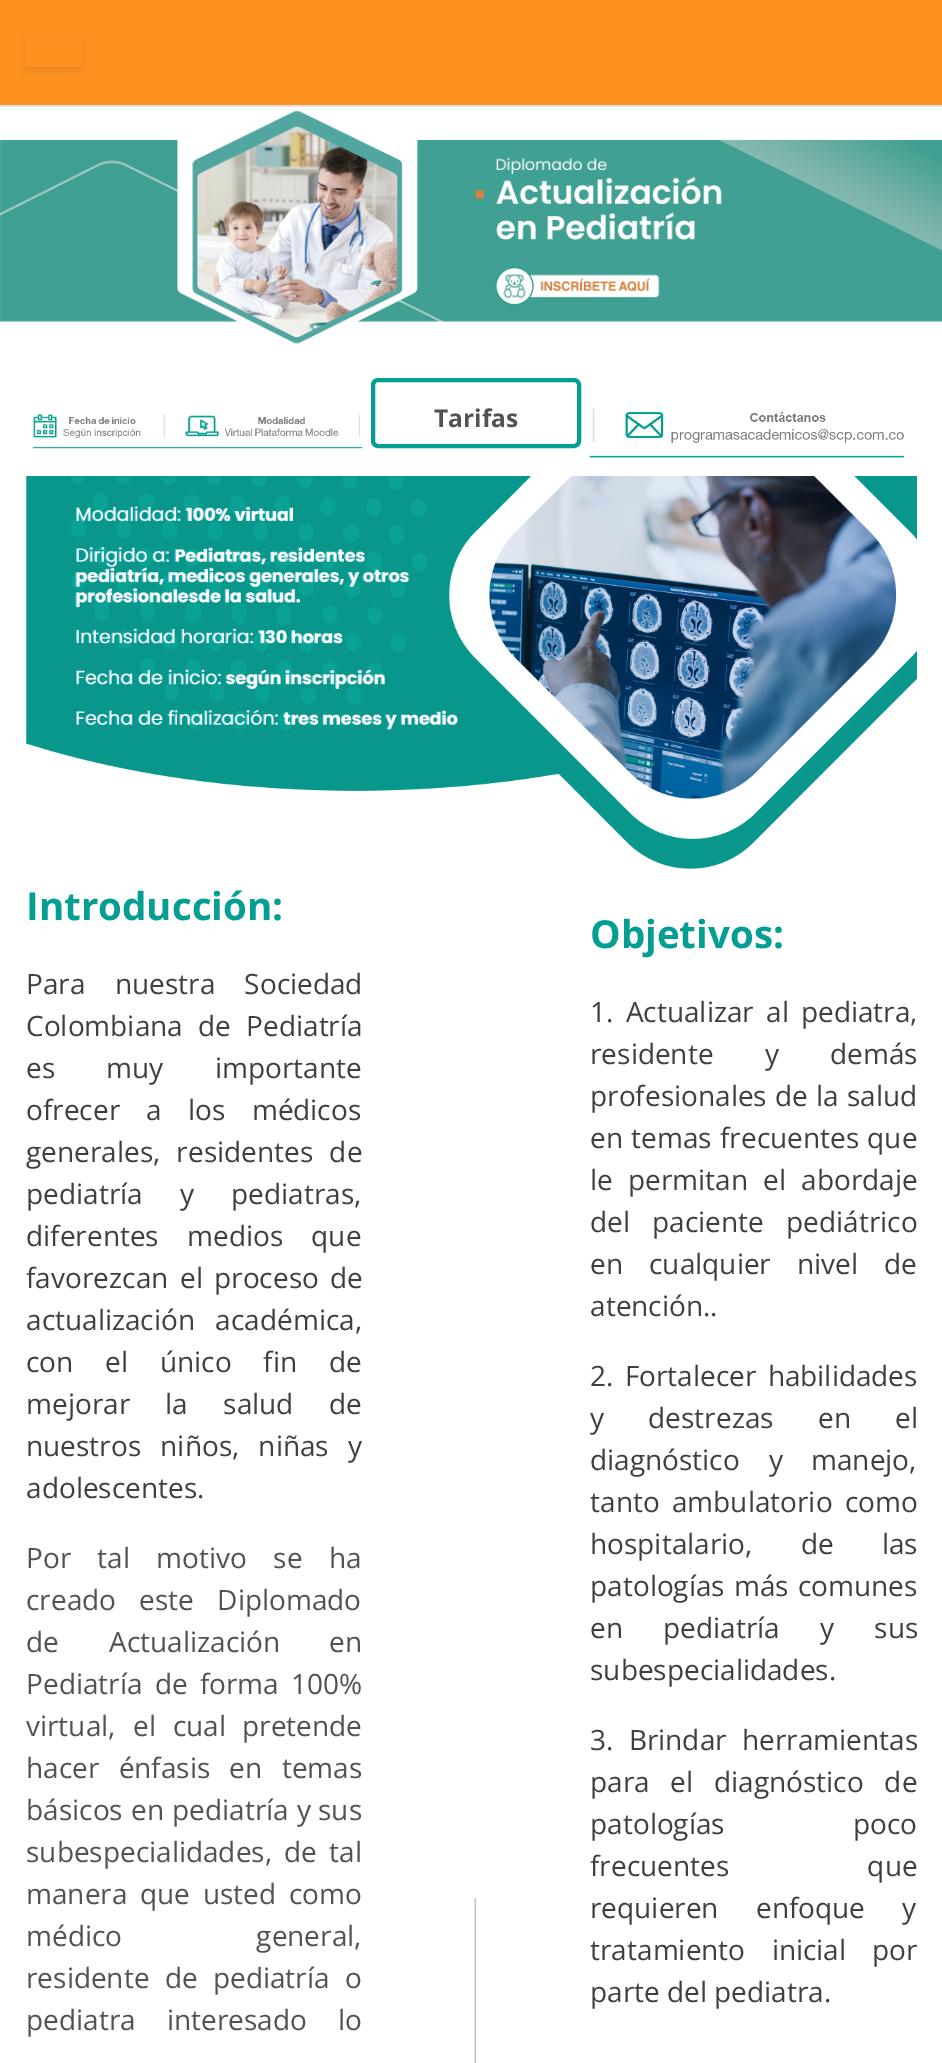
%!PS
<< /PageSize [942 2063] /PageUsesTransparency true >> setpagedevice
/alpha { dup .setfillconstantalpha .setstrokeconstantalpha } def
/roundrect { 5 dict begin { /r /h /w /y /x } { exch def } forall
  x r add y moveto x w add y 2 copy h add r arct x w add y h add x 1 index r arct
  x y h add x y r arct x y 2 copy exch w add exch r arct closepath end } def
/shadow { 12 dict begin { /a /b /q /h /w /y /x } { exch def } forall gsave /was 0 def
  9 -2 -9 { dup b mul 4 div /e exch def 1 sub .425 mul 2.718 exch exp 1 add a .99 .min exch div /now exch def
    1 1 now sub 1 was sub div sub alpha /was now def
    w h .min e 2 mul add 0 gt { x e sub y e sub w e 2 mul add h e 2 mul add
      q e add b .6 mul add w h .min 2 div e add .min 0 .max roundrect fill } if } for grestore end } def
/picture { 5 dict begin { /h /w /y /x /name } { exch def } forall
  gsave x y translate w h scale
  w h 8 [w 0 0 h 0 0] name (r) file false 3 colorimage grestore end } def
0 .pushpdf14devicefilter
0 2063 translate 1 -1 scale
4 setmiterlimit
1 setgray
0 0 942 2063 rectfill
0.992 0.573 0.125 setrgbcolor
0 0 942 105 rectfill
0.871 0.886 0.902 setrgbcolor
0 105 942 2 rectfill
gsave
newpath 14 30 moveto 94 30 lineto 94 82 lineto 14 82 lineto closepath 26 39 moveto 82 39 lineto 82 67 lineto 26 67 lineto closepath eoclip newpath
0 setgray
26 42 56 28 0 3.5 0.08 shadow
grestore
(img1.rgb) 0 110 942 234 picture
(img2.rgb) 32 414 331 35 picture
0.016 0.62 0.576 setrgbcolor
4 setlinewidth
373 380 206 66 5 roundrect stroke
/OpenSans-Bold [24.5 0 0 -24.5 0 0] selectfont
0.329 0.322 0.318 setrgbcolor
434 427 moveto (Tarifas) show
(img3.rgb) 589 408 316 50 picture
(img4.rgb) 26 476 891 393 picture
/OpenSans-Bold [38.5 0 0 -38.5 0 0] selectfont
0.016 0.62 0.576 setrgbcolor
26 920 moveto (Introducción:) show
/OpenSans-Regular [28 0 0 -28 0 0] selectfont
0.247 setgray
26 994 moveto 22 0 32 (Para nuestra Sociedad) widthshow
26 1036 moveto 8 0 32 (Colombiana de Pediatría) widthshow
26 1078 moveto 44 0 32 (es muy) widthshow
215 1078 moveto (importante) show
26 1120 moveto 19 0 32 (ofrecer a los médicos) widthshow
26 1162 moveto 9 0 32 (generales, residentes de) widthshow
26 1204 moveto 30 0 32 (pediatría y pediatras,) widthshow
26 1246 moveto 21 0 32 (diferentes medios que) widthshow
26 1288 moveto (favorezcan) show
180 1288 moveto 4 0 32 (el proceso de) widthshow
26 1330 moveto 13 0 32 (actualización académica,) widthshow
26 1372 moveto 24.5 0 32 (con el único fin de) widthshow
26 1414 moveto 28 0 32 (mejorar la salud de) widthshow
26 1456 moveto 12 0 32 (nuestros niños, niñas y) widthshow
26 1498 moveto (adolescentes.) show
0.329 0.322 0.318 setrgbcolor
26 1568 moveto 19 0 32 (Por tal motivo se ha) widthshow
26 1610 moveto 16 0 32 (creado este Diplomado) widthshow
26 1652 moveto (de) show
109 1652 moveto 42 0 32 (Actualización en) widthshow
26 1694 moveto 5 0 32 (Pediatría de forma 100%) widthshow
26 1736 moveto 10 0 32 (virtual, el cual) widthshow
242 1736 moveto (pretende) show
26 1778 moveto 12 0 32 (hacer énfasis en temas) widthshow
26 1820 moveto 1 0 32 (básicos en pediatría y) widthshow
318 1820 moveto (sus) show
26 1862 moveto 5 0 32 (subespecialidades, de tal) widthshow
26 1904 moveto 5.5 0 32 (manera que usted como) widthshow
26 1946 moveto 127 0 32 (médico general,) widthshow
26 1988 moveto 8 0 32 (residente de pediatría o) widthshow
26 2030 moveto (pediatra) show
167 2030 moveto 24 0 32 (interesado lo) widthshow
(img5.rgb) 471 1896 5 167 picture
/OpenSans-Bold [38.5 0 0 -38.5 0 0] selectfont
0.016 0.62 0.576 setrgbcolor
590 948 moveto (Objetivos:) show
/OpenSans-Regular [28 0 0 -28 0 0] selectfont
0.247 setgray
590 1022 moveto 5 0 32 (1. Actualizar al pediatra,) widthshow
590 1064 moveto 44 0 32 (residente y demás) widthshow
590 1106 moveto 1 0 32 (profesionales de la salud) widthshow
590 1148 moveto 1 0 32 (en temas frecuentes que) widthshow
590 1190 moveto (le) show
628 1190 moveto 8 0 32 (permitan el abordaje) widthshow
590 1232 moveto 15 0 32 (del paciente pediátrico) widthshow
590 1274 moveto (en) show
649 1274 moveto 19 0 32 (cualquier nivel de) widthshow
590 1316 moveto (atención..) show
590 1386 moveto 4 0 32 (2. Fortalecer habilidades) widthshow
590 1428 moveto 37 0 32 (y destrezas en el) widthshow
590 1470 moveto 22 0 32 (diagnóstico y) widthshow
811 1470 moveto (manejo,) show
590 1512 moveto 5 0 32 (tanto ambulatorio como) widthshow
590 1554 moveto 41 0 32 (hospitalario, de las) widthshow
590 1596 moveto 2 0 32 (patologías más comunes) widthshow
590 1638 moveto 33 0 32 (en pediatría y sus) widthshow
590 1680 moveto (subespecialidades.) show
590 1750 moveto 8 0 32 (3. Brindar herramientas) widthshow
590 1792 moveto 13.5 0 32 (para el diagnóstico de) widthshow
590 1834 moveto 121 0 32 (patologías poco) widthshow
590 1876 moveto 131 0 32 (frecuentes que) widthshow
590 1918 moveto 30 0 32 (requieren enfoque y) widthshow
590 1960 moveto 19 0 32 (tratamiento inicial por) widthshow
590 2002 moveto (parte del pediatra.) show
.poppdf14devicefilter showpage
